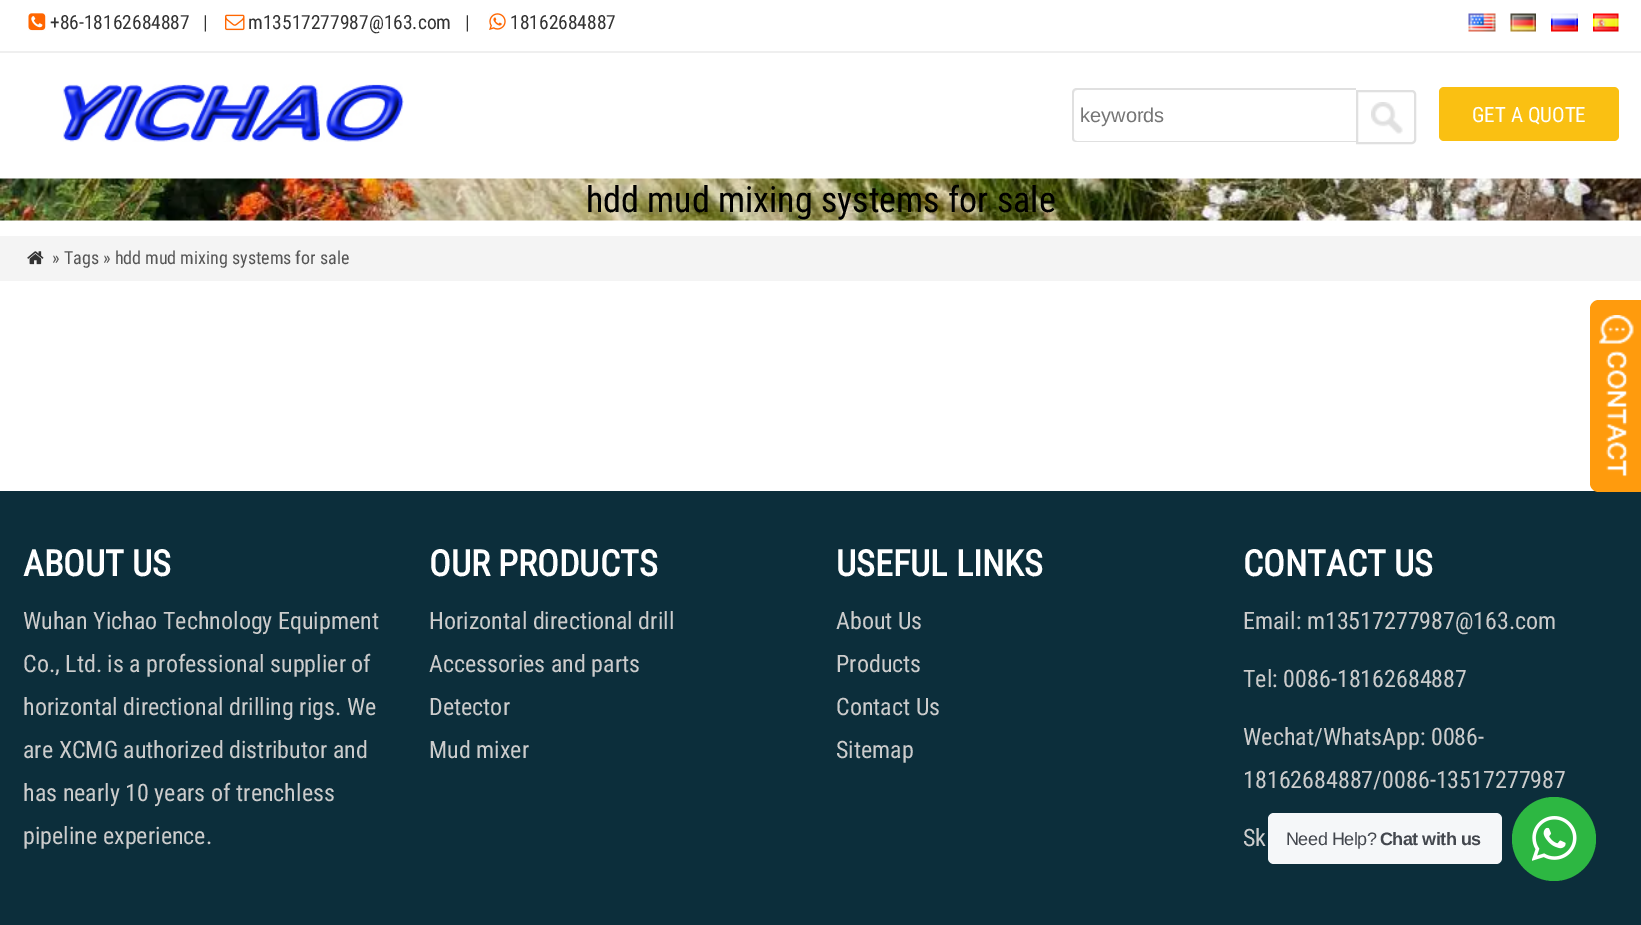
%!PS
<< /PageSize [1641 925] >> setpagedevice
/roundrect { 5 dict begin { /r /h /w /y /x } { exch def } forall
  x r add y moveto x w add y 2 copy h add r arct x w add y h add x 1 index r arct
  x y h add x y r arct x y 2 copy exch w add exch r arct closepath end } def
/picture { 5 dict begin { /h /w /y /x /name } { exch def } forall
  gsave x y translate w h scale
  w h 8 [w 0 0 h 0 0] name (r) file false 3 colorimage grestore end } def
0 925 translate 1 -1 scale
4 setmiterlimit
1 setgray
0 0 1641 925 rectfill
0.937 setgray
0 51 1641 2 rectfill
(img1.rgb) 28 13 18 18 picture
/RobotoCondensed-Regular [19.5 0 0 -19.5 0 0] selectfont
0.2 setgray
50 29 moveto (+86-18162684887) show
203 29 moveto (|) show
(img2.rgb) 225 14 20 17 picture
248 29 moveto (m13517277987@163.com) show
465 29 moveto (|) show
(img3.rgb) 489 13 17 17 picture
510 29 moveto (18162684887) show
(img4.rgb) 1468 13 28 19 picture
(img5.rgb) 1510 13 26 19 picture
(img6.rgb) 1551 13 27 19 picture
(img7.rgb) 1593 13 26 19 picture
(img8.rgb) 63 84 341 58 picture
0.878 setgray
newpath 1077 88 moveto 1356 88 lineto 1356 142 lineto 1077 142 lineto 1074 142 1072 141 1072 138 curveto 1072 93 lineto 1072 90 1074 88 1077 88 curveto closepath 1077 90 moveto 1356 90 lineto 1356 141 lineto 1077 141 lineto 1075 141 1074 140 1074 138 curveto 1074 93 lineto 1074 91 1075 90 1077 90 curveto closepath eofill
/LiberationSans-Regular [20 0 0 -20 0 0] selectfont
0.459 setgray
1080 122 moveto (keywords) show
(img9.rgb) 1371 102 32 32 picture
0.878 setgray
2 setlinewidth
newpath 1357 91 moveto 1412 91 lineto 1413.5 91 1415 92.5 1415 94 curveto 1415 140 lineto 1415 141.5 1413.5 143 1412 143 curveto 1357 143 lineto closepath stroke
0.98 0.753 0.071 setrgbcolor
1439 87 180 54 5 roundrect fill
/RobotoCondensed-Regular [21 0 0 -21 0 0] selectfont
1 setgray
1472 122 moveto (GET A QUOTE) show
(img10.rgb) 0 178 1641 43 picture
/RobotoCondensed-Regular [36 0 0 -36 0 0] selectfont
0 setgray
586 212 moveto (hdd mud mixing systems for sale) show
0.957 setgray
0 236 1641 45 rectfill
(img11.rgb) 27 251 17 14 picture
/RobotoCondensed-Regular [18 0 0 -18 0 0] selectfont
0.333 setgray
52 264 moveto (» Tags » hdd mud mixing systems for sale) show
0.047 0.18 0.231 setrgbcolor
0 491 1641 434 rectfill
/RobotoCondensed-Bold [36 0 0 -36 0 0] selectfont
1 setgray
23 576 moveto (ABOUT US) show
/RobotoCondensed-Regular [24 0 0 -24 0 0] selectfont
0.8 setgray
23 629 moveto (Wuhan Yichao Technology Equipment) show
23 672 moveto (Co., Ltd. is a professional supplier of) show
23 715 moveto (horizontal directional drilling rigs. We) show
23 758 moveto (are XCMG authorized distributor and) show
23 801 moveto (has nearly 10 years of trenchless) show
23 844 moveto (pipeline experience.) show
/RobotoCondensed-Bold [36 0 0 -36 0 0] selectfont
1 setgray
429 576 moveto (OUR PRODUCTS) show
/RobotoCondensed-Regular [24 0 0 -24 0 0] selectfont
0.8 setgray
429 629 moveto (Horizontal directional drill) show
429 672 moveto (Accessories and parts) show
429 715 moveto (Detector) show
429 758 moveto (Mud mixer) show
/RobotoCondensed-Bold [36 0 0 -36 0 0] selectfont
1 setgray
836 576 moveto (USEFUL LINKS) show
/RobotoCondensed-Regular [24 0 0 -24 0 0] selectfont
0.8 setgray
836 629 moveto (About Us) show
836 672 moveto (Products) show
836 715 moveto (Contact Us) show
836 758 moveto (Sitemap) show
/RobotoCondensed-Bold [36 0 0 -36 0 0] selectfont
1 setgray
1243 576 moveto (CONTACT US) show
/RobotoCondensed-Regular [24 0 0 -24 0 0] selectfont
0.8 setgray
1243 629 moveto (Email: m13517277987@163.com) show
1243 687 moveto (Tel: 0086-18162684887) show
1243 745 moveto (Wechat/WhatsApp: 0086-) show
1243 788 moveto (18162684887/0086-13517277987) show
1243 846 moveto (Sk) show
1 0.608 0.051 setrgbcolor
newpath 1599 300 moveto 1641 300 lineto 1641 492 lineto 1599 492 lineto 1594 492 1590 488 1590 483 curveto 1590 309 lineto 1590 304 1594 300 1599 300 curveto closepath fill
(img12.rgb) 1599 315 35 162 picture
0.961 0.969 0.976 setrgbcolor
1268 813 234 51 6 roundrect fill
/LiberationSans-Regular [18 0 0 -18 0 0] selectfont
0.263 0.278 0.306 setrgbcolor
1286 845 moveto -0.5 0 (Need Help?) ashow
/LiberationSans-Bold [18 0 0 -18 0 0] selectfont
1380 845 moveto -0.5 0 (Chat with us) ashow
0.176 0.718 0.259 setrgbcolor
newpath 1554 839 42 0 360 arc closepath fill
(img13.rgb) 1532 816 45 45 picture
showpage
